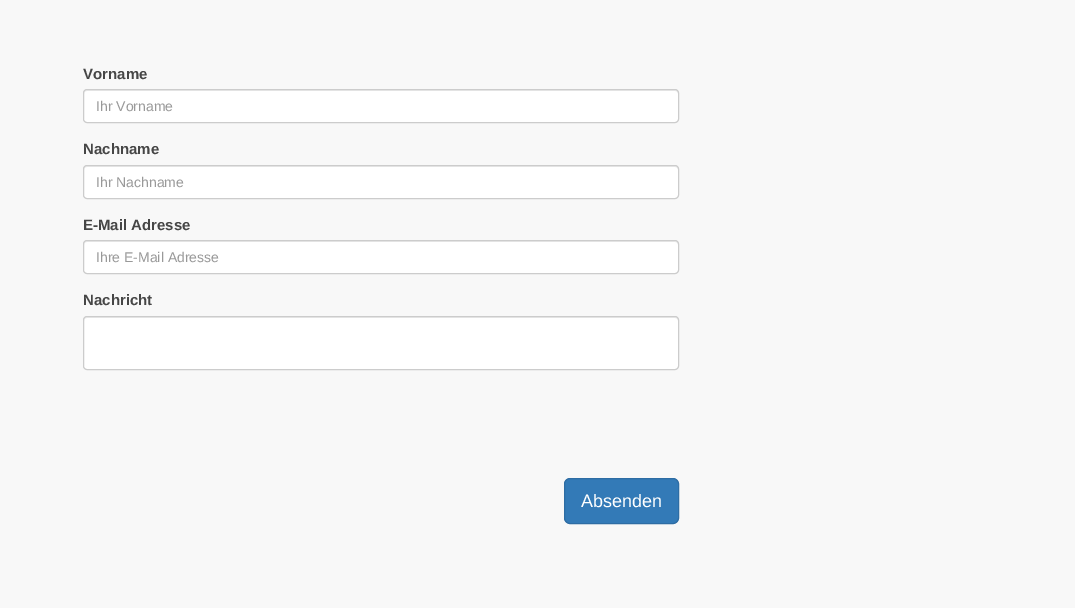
%!PS
<< /PageSize [1075 608] >> setpagedevice
/roundrect { 5 dict begin { /r /h /w /y /x } { exch def } forall
  x r add y moveto x w add y 2 copy h add r arct x w add y h add x 1 index r arct
  x y h add x y r arct x y 2 copy exch w add exch r arct closepath end } def
0 608 translate 1 -1 scale
4 setmiterlimit
0.973 setgray
0 0 1075 608 rectfill
/LiberationSans-Bold [15 0 0 -15 0 0] selectfont
0.275 setgray
83 79 moveto (Vorname) show
1 setgray
83 89 596 34 4 roundrect fill
0.925 setgray
newpath 87 91 moveto 675 91 lineto 677 91 678 92 678 94 curveto 678 93 lineto 678 91 677 90 675 90 curveto 87 90 lineto 85 90 84 91 84 93 curveto 84 94 lineto 84 92 85 91 87 91 curveto closepath fill
0.8 setgray
83.5 89.5 595 33 3.5 roundrect stroke
/LiberationSans-Regular [14 0 0 -14 0 0] selectfont
0.6 setgray
96 111 moveto (Ihr Vorname) show
/LiberationSans-Bold [15 0 0 -15 0 0] selectfont
0.275 setgray
83 154 moveto (Nachname) show
1 setgray
83 165 596 34 4 roundrect fill
0.925 setgray
newpath 87 167 moveto 675 167 lineto 677 167 678 168 678 170 curveto 678 169 lineto 678 167 677 166 675 166 curveto 87 166 lineto 85 166 84 167 84 169 curveto 84 170 lineto 84 168 85 167 87 167 curveto closepath fill
0.8 setgray
83.5 165.5 595 33 3.5 roundrect stroke
/LiberationSans-Regular [14 0 0 -14 0 0] selectfont
0.6 setgray
96 187 moveto (Ihr Nachname) show
/LiberationSans-Bold [15 0 0 -15 0 0] selectfont
0.275 setgray
83 230 moveto (E-Mail Adresse) show
1 setgray
83 240 596 34 4 roundrect fill
0.925 setgray
newpath 87 242 moveto 675 242 lineto 677 242 678 243 678 245 curveto 678 244 lineto 678 242 677 241 675 241 curveto 87 241 lineto 85 241 84 242 84 244 curveto 84 245 lineto 84 243 85 242 87 242 curveto closepath fill
0.8 setgray
83.5 240.5 595 33 3.5 roundrect stroke
/LiberationSans-Regular [14 0 0 -14 0 0] selectfont
0.6 setgray
96 262 moveto (Ihre E-Mail Adresse) show
/LiberationSans-Bold [15 0 0 -15 0 0] selectfont
0.275 setgray
83 305 moveto (Nachricht) show
1 setgray
83 316 596 54 4 roundrect fill
0.925 setgray
newpath 87 318 moveto 675 318 lineto 677 318 678 319 678 321 curveto 678 320 lineto 678 318 677 317 675 317 curveto 87 317 lineto 85 317 84 318 84 320 curveto 84 321 lineto 84 319 85 318 87 318 curveto closepath fill
0.8 setgray
83.5 316.5 595 53 3.5 roundrect stroke
0.2 0.478 0.718 setrgbcolor
564.5 478.5 114 45 5.5 roundrect gsave fill grestore
0.18 0.427 0.643 setrgbcolor
stroke
/LiberationSans-Regular [18 0 0 -18 0 0] selectfont
1 setgray
581 507 moveto (Absenden) show
showpage
